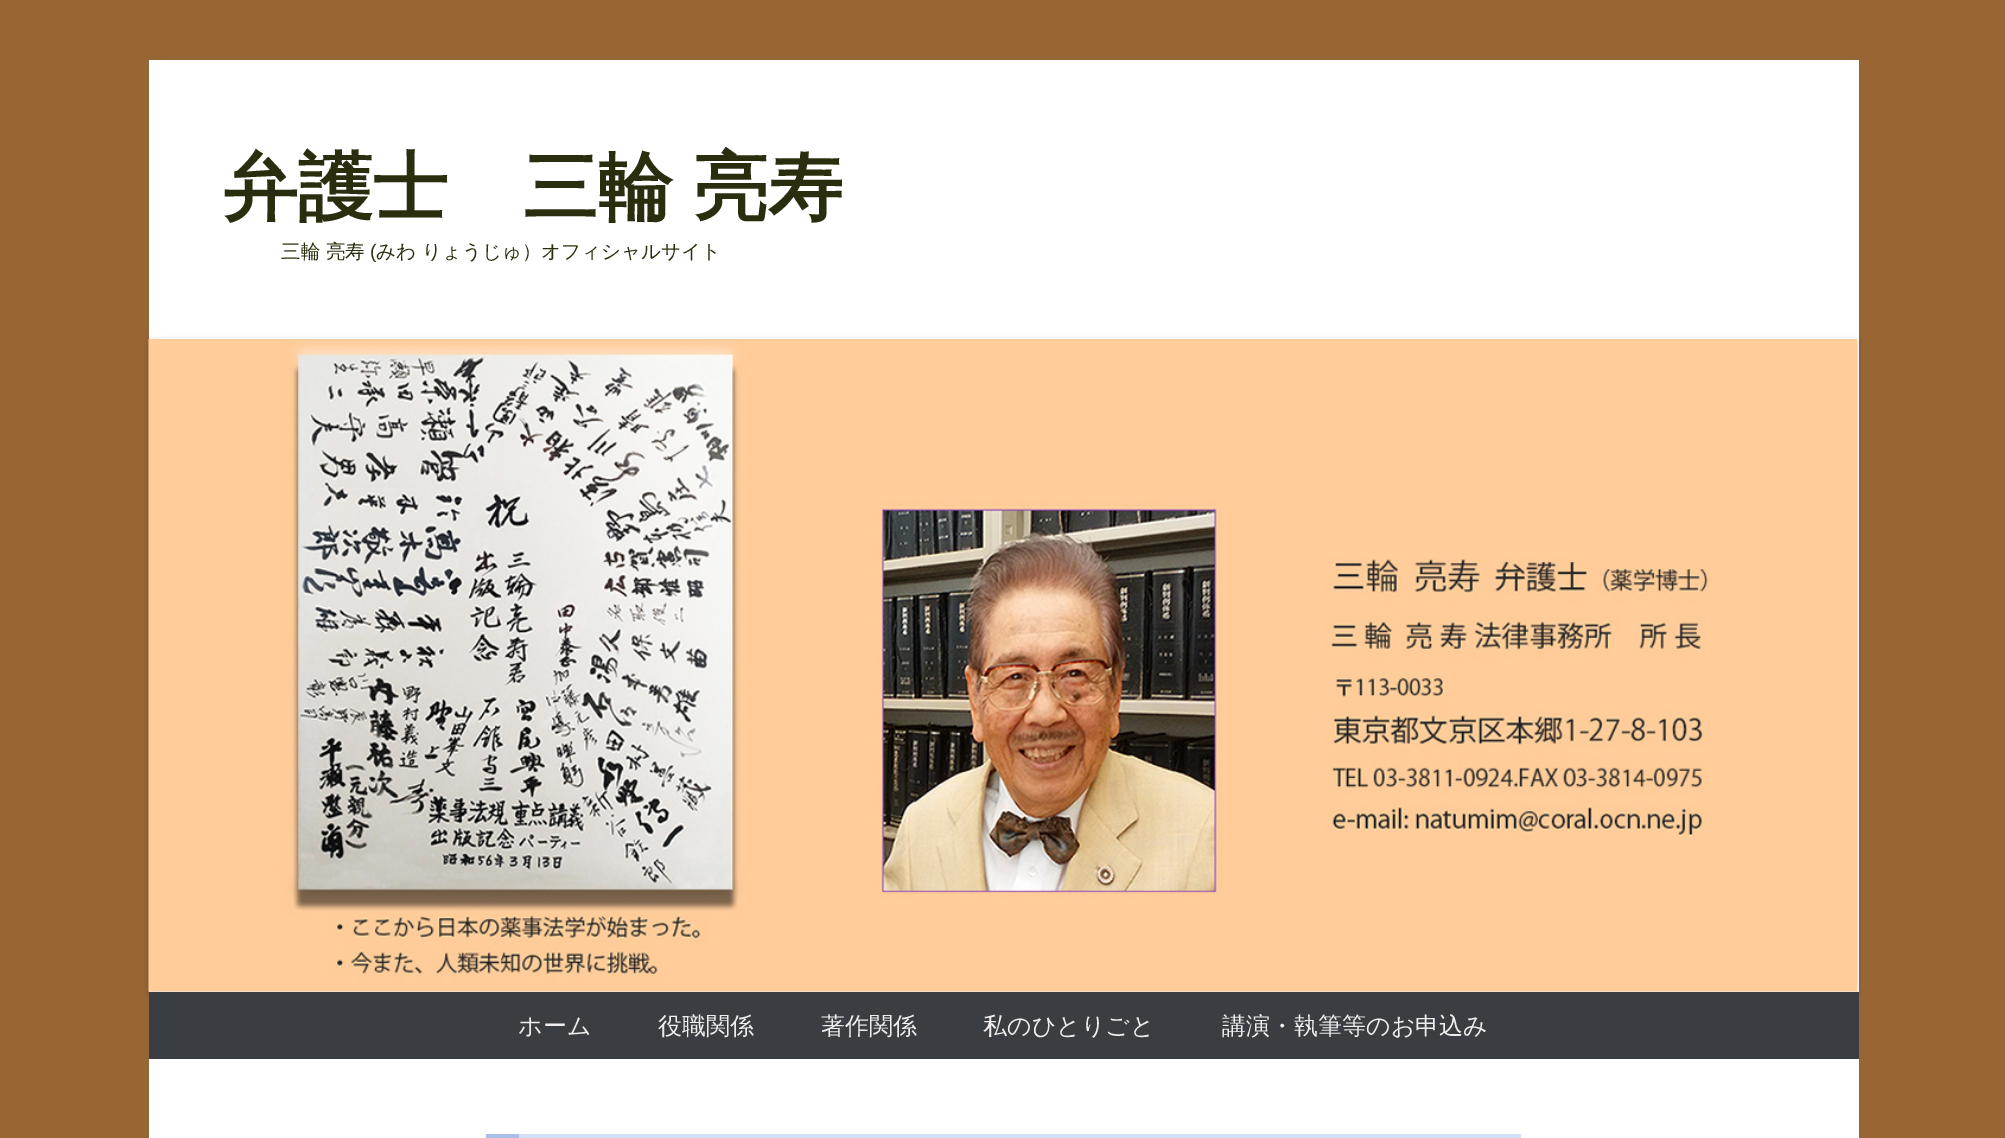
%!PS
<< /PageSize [2005 1138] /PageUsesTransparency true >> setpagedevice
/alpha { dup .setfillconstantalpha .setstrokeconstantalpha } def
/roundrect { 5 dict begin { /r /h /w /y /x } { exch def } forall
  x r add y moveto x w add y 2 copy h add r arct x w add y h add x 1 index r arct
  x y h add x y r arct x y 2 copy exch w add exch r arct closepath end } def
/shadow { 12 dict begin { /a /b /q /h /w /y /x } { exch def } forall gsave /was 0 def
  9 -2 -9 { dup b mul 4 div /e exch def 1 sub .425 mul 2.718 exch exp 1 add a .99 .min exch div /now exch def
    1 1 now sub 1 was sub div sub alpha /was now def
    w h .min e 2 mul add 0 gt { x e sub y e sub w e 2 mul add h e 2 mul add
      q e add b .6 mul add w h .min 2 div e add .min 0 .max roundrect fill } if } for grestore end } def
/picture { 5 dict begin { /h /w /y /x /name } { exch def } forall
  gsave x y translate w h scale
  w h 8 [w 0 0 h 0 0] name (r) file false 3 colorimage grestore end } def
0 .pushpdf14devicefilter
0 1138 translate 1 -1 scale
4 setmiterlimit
0.6 0.4 0.2 setrgbcolor
0 0 2005 1138 rectfill
0.392 setgray
149 63 1710 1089 0 4.5 0.3 shadow
1 setgray
149 60 1710 1078 rectfill
/WenQuanYiZenHei-Bold [75 0 0 -75 0 0] selectfont
0.165 0.176 0.055 setrgbcolor
223 213 moveto -2 0 32 (弁護士　三輪 亮寿) widthshow
/WenQuanYiZenHei-Medium [19.5 0 0 -19.5 0 0] selectfont
281 258 moveto (三輪 亮寿) show
/LiberationSans-Regular [19.5 0 0 -19.5 0 0] selectfont
370 258 moveto (\() show
/WenQuanYiZenHei-Medium [19.5 0 0 -19.5 0 0] selectfont
376 258 moveto (みわ りょうじゅ）オフィシャルサイト) show
0 setgray
149 341 1708 652 0 3 0.2 shadow
(img1.rgb) 148 339 1709 653 picture
0.227 0.239 0.255 setrgbcolor
149 992 1710 67 rectfill
/WenQuanYiZenHei-Medium [24 0 0 -24 0 0] selectfont
0.933 setgray
518 1034 moveto (ホーム) show
658 1034 moveto (役職関係) show
821 1034 moveto (著作関係) show
983 1034 moveto (私のひとりごと) show
1222 1034 moveto (講演・執筆等のお申込み) show
0.824 0.878 0.976 setrgbcolor
519 1134 1002 4 rectfill
0.659 0.749 0.91 setrgbcolor
486 1134 33 4 rectfill
.poppdf14devicefilter showpage
